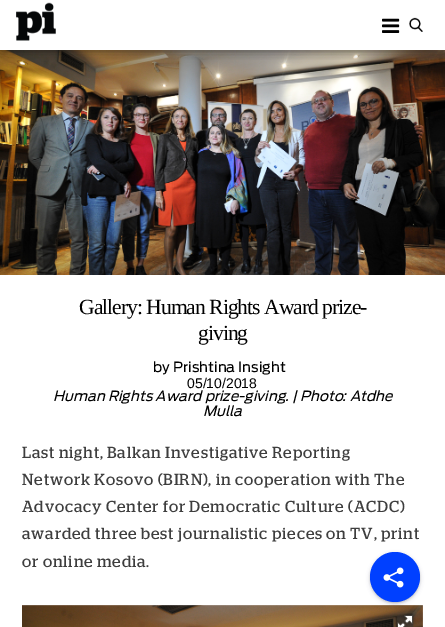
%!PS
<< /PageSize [445 627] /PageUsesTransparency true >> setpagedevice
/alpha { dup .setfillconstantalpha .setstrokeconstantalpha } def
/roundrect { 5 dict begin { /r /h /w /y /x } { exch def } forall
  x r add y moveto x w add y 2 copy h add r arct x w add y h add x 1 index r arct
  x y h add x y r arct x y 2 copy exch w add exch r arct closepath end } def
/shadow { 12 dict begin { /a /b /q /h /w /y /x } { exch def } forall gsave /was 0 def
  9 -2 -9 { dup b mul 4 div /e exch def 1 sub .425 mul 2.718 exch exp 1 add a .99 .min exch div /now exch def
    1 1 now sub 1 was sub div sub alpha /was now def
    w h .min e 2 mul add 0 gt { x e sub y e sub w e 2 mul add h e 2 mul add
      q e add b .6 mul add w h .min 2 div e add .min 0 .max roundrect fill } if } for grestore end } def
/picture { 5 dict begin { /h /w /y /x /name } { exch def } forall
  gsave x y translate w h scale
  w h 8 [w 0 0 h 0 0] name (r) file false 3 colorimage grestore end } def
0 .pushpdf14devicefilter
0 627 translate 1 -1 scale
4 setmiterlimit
1 setgray
0 0 445 627 rectfill
(img4.rgb) 0 50 445 225 picture
gsave
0 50 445 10 rectclip
0 setgray
2 2 441 46 0 6 0.75 shadow
grestore
(img1.rgb) 16 2 40 39 picture
(img2.rgb) 382 18 18 15 picture
(img3.rgb) 409 17 14 15 picture
/LiberationSerif-Regular [21.6 0 0 -21.6 0 0] selectfont
0 setgray
79 314 moveto -1 0 (Gallery: Human Rights Award prize-) ashow
198 340 moveto -1 0 (giving) ashow
/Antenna-Regular [14 0 0 -14 0 0] selectfont
153 372 moveto (by Prishtina Insight) show
/LiberationSans-Regular [14 0 0 -14 0 0] selectfont
187 388 moveto (05/10/2018) show
/Antenna-Italic [14 0 0 -14 0 0] selectfont
53 401 moveto (Human Rights Award prize-giving. | Photo: Atdhe) show
203 416 moveto (Mulla) show
/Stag-Regular [16 0 0 -16 0 0] selectfont
0.243 setgray
22 458 moveto 0.85 0 (Last night, Balkan Investigative Reporting) ashow
22 485 moveto 0.85 0 (Network Kosovo \(BIRN\), in cooperation with The) ashow
22 512 moveto 0.85 0 (Advocacy Center for Democratic Culture \(ACDC\)) ashow
22 539 moveto 0.85 0 (awarded three best journalistic pieces on TV, print) ashow
22 567 moveto 0.85 0 (or online media.) ashow
(img5.rgb) 22 605 401 22 picture
(img6.rgb) 394 613 22 14 picture
0 setgray
371 554 48 48 24 1.5 0.3 shadow
0.196 0.196 0.365 setrgbcolor
371 555 48 48 24 2.5 0.25 shadow
0 0.251 1 setrgbcolor
newpath 395 577 25 0 360 arc closepath fill
(img7.rgb) 383 567 21 21 picture
.poppdf14devicefilter showpage
